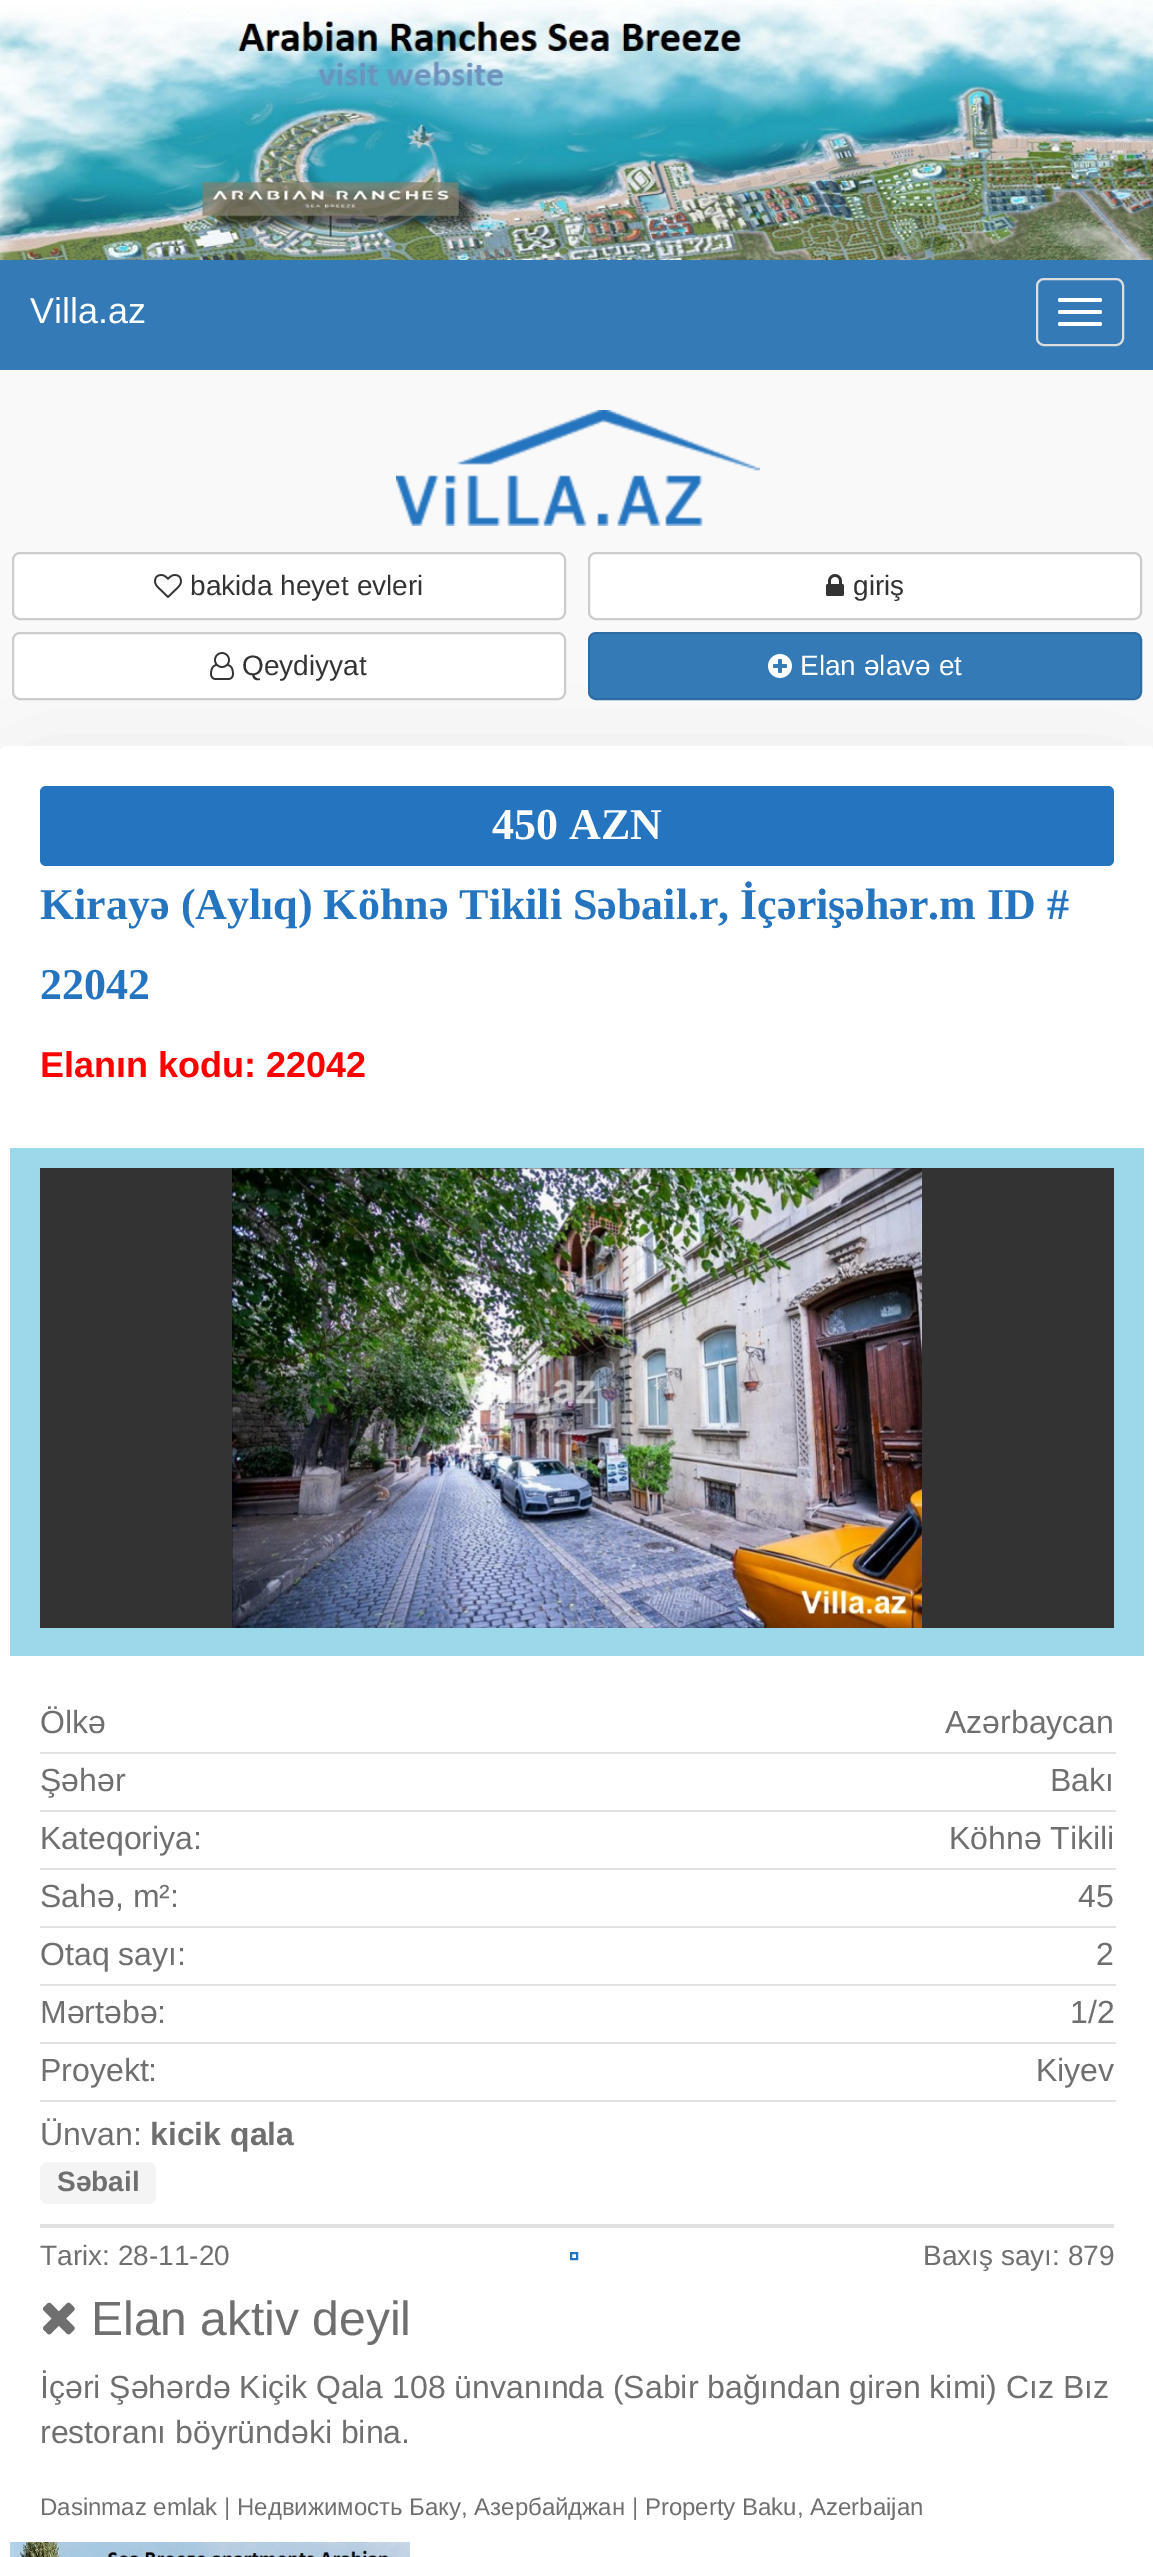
%!PS
<< /PageSize [1153 2557] /PageUsesTransparency true >> setpagedevice
/alpha { dup .setfillconstantalpha .setstrokeconstantalpha } def
/roundrect { 5 dict begin { /r /h /w /y /x } { exch def } forall
  x r add y moveto x w add y 2 copy h add r arct x w add y h add x 1 index r arct
  x y h add x y r arct x y 2 copy exch w add exch r arct closepath end } def
/shadow { 12 dict begin { /a /b /q /h /w /y /x } { exch def } forall gsave /was 0 def
  9 -2 -9 { dup b mul 4 div /e exch def 1 sub .425 mul 2.718 exch exp 1 add a .99 .min exch div /now exch def
    1 1 now sub 1 was sub div sub alpha /was now def
    w h .min e 2 mul add 0 gt { x e sub y e sub w e 2 mul add h e 2 mul add
      q e add b .6 mul add w h .min 2 div e add .min 0 .max roundrect fill } if } for grestore end } def
/picture { 5 dict begin { /h /w /y /x /name } { exch def } forall
  gsave x y translate w h scale
  w h 8 [w 0 0 h 0 0] name (r) file false 3 colorimage grestore end } def
0 .pushpdf14devicefilter
0 2557 translate 1 -1 scale
4 setmiterlimit
0.976 setgray
0 0 1153 2557 rectfill
(img1.rgb) 0 0 1153 260 picture
0.2 0.478 0.718 setrgbcolor
0 260 1153 110 rectfill
/LiberationSans-Regular [36 0 0 -36 0 0] selectfont
1 setgray
30 323 moveto (Villa.az) show
0.867 setgray
2 setlinewidth
1037 279 86 66 7 roundrect stroke
1 setgray
1058 298 44 4 2 roundrect fill
1058 310 44 4 2 roundrect fill
1058 322 44 4 2 roundrect fill
(img2.rgb) 396 410 364 116 picture
13 553 552 66 7 roundrect gsave fill grestore
0.8 setgray
stroke
(img3.rgb) 154 574 28 24 picture
/LiberationSans-Regular [28 0 0 -28 0 0] selectfont
0.2 setgray
190 595 moveto (bakida heyet evleri) show
1 setgray
589 553 552 66 7 roundrect gsave fill grestore
0.8 setgray
stroke
(img4.rgb) 826 574 18 22 picture
0.2 setgray
853 595 moveto (giriş) show
0 setgray
40 796 1074 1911 0 50 0.15 shadow
1 setgray
13 633 552 66 7 roundrect gsave fill grestore
0.8 setgray
stroke
(img5.rgb) 210 652 24 28 picture
0.2 setgray
242 675 moveto (Qeydiyyat) show
0.2 0.478 0.718 setrgbcolor
589 633 552 66 7 roundrect gsave fill grestore
0.18 0.427 0.643 setrgbcolor
stroke
(img6.rgb) 768 654 24 24 picture
1 setgray
800 675 moveto (Elan əlavə et) show
0 746 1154 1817 6 roundrect fill
0.141 0.455 0.749 setrgbcolor
40 786 1074 80 6 roundrect fill
/LiberationSerif-Bold [44 0 0 -44 0 0] selectfont
1 setgray
492 839 moveto (450 AZN) show
0.141 0.455 0.749 setrgbcolor
40 919 moveto (Kirayə \(Aylıq\) Köhnə Tikili Səbail.r, İçərişəhər.m ID #) show
40 999 moveto (22042) show
/LiberationSans-Bold [36 0 0 -36 0 0] selectfont
1 0 0 setrgbcolor
40 1077 moveto (Elanın kodu: 22042) show
0.608 0.847 0.918 setrgbcolor
10 1148 1134 508 rectfill
0.2 setgray
40 1168 1074 460 rectfill
(img7.rgb) 232 1168 690 460 picture
0.886 setgray
40 1752 1076 2 rectfill
/LiberationSans-Regular [32 0 0 -32 0 0] selectfont
0.435 setgray
40 1733 moveto (Ölkə) show
945 1733 moveto (Azərbaycan) show
0.886 setgray
40 1810 1076 2 rectfill
0.435 setgray
40 1791 moveto (Şəhər) show
1050 1791 moveto (Bakı) show
0.886 setgray
40 1868 1076 2 rectfill
0.435 setgray
40 1849 moveto (Kateqoriya:) show
949 1849 moveto (Köhnə Tikili) show
0.886 setgray
40 1926 1076 2 rectfill
0.435 setgray
40 1907 moveto (Sahə, m²:) show
1078 1907 moveto (45) show
0.886 setgray
40 1984 1076 2 rectfill
0.435 setgray
40 1965 moveto (Otaq sayı:) show
1096 1965 moveto (2) show
0.886 setgray
40 2042 1076 2 rectfill
0.435 setgray
40 2023 moveto (Mərtəbə:) show
1070 2023 moveto (1/2) show
0.886 setgray
40 2100 1076 2 rectfill
0.435 setgray
40 2081 moveto (Proyekt:) show
1036 2081 moveto (Kiyev) show
40 2145 moveto (Ünvan:) show
/LiberationSans-Bold [32 0 0 -32 0 0] selectfont
150 2145 moveto (kicik qala) show
0.886 setgray
40 2224 1074 4 rectfill
0.957 setgray
40 2162 116 42 8 roundrect fill
/LiberationSans-Bold [28 0 0 -28 0 0] selectfont
0.435 setgray
57 2191 moveto (Səbail) show
/LiberationSans-Regular [28 0 0 -28 0 0] selectfont
40 2265 moveto (Tarix: 28-11-20) show
0.141 0.455 0.749 setrgbcolor
571 2253 6 6 rectstroke
0.435 setgray
923 2265 moveto (Baxış sayı: 879) show
(img8.rgb) 43 2302 32 33 picture
/LiberationSans-Regular [48 0 0 -48 0 0] selectfont
91 2335 moveto (Elan aktiv deyil) show
/LiberationSans-Regular [32 0 0 -32 0 0] selectfont
40 2398 moveto (İçəri Şəhərdə Kiçik Qala 108 ünvanında \(Sabir bağından girən kimi\) Cız Bız) show
40 2443 moveto (restoranı böyründəki bina.) show
/LiberationSans-Regular [24 0 0 -24 0 0] selectfont
40 2515 moveto (Dasinmaz emlak | Недвижимость Баку, Азербайджан | Property Baku, Azerbaijan) show
(img9.rgb) 10 2542 400 15 picture
.poppdf14devicefilter showpage
